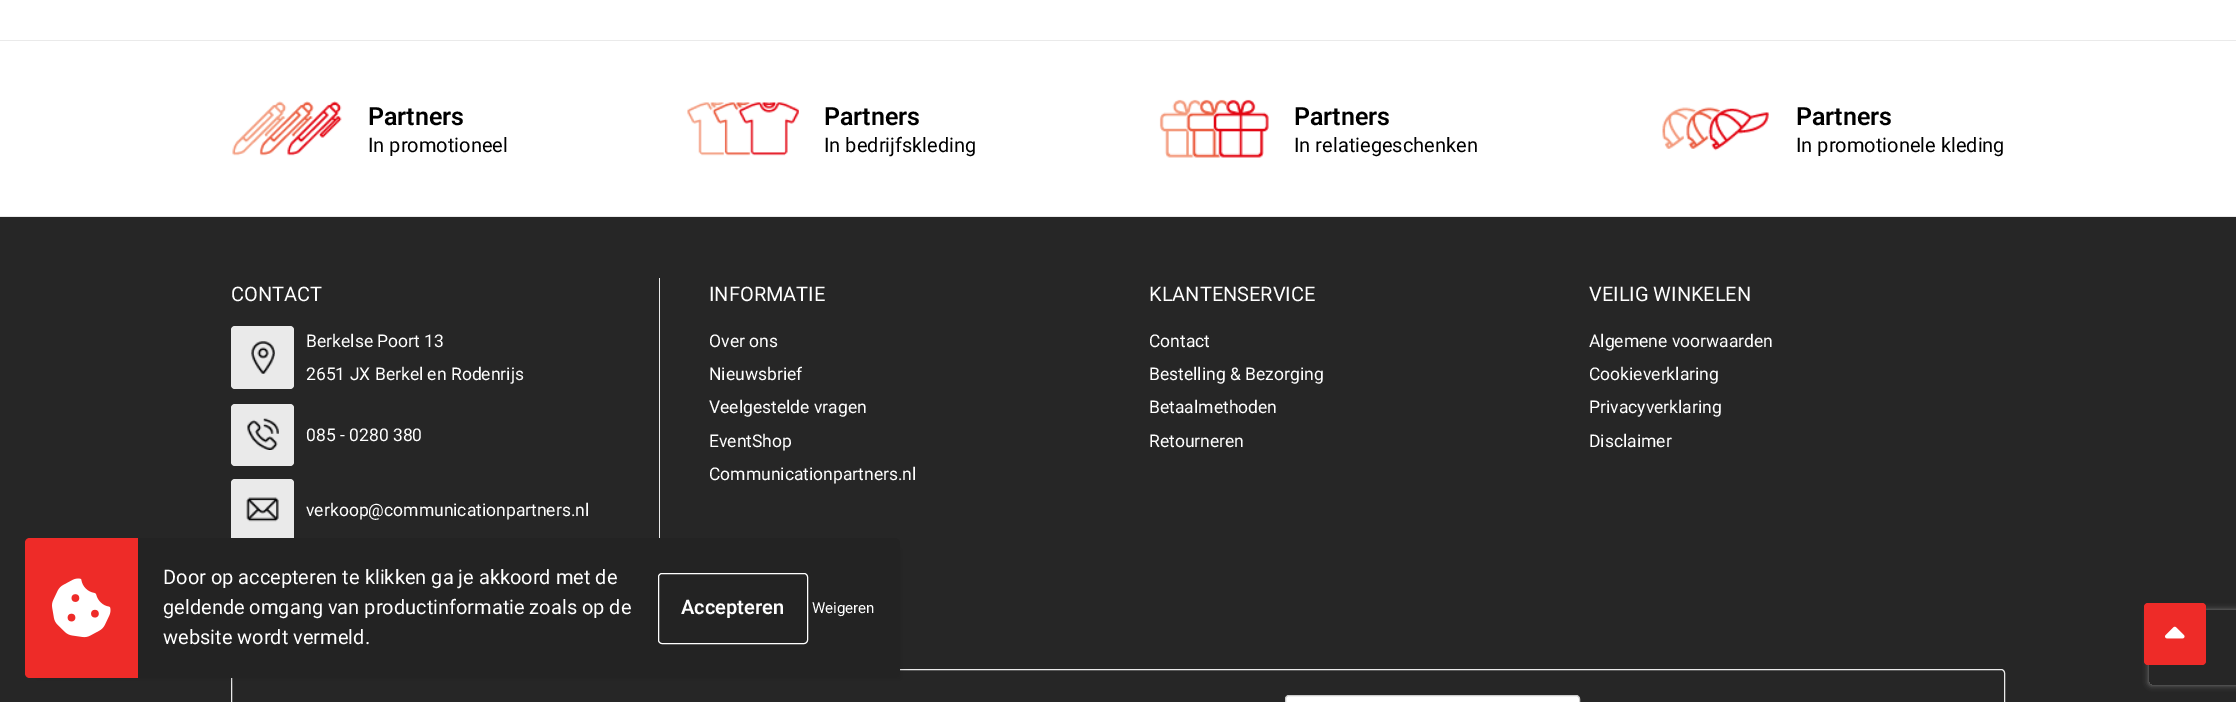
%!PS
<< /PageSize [2236 702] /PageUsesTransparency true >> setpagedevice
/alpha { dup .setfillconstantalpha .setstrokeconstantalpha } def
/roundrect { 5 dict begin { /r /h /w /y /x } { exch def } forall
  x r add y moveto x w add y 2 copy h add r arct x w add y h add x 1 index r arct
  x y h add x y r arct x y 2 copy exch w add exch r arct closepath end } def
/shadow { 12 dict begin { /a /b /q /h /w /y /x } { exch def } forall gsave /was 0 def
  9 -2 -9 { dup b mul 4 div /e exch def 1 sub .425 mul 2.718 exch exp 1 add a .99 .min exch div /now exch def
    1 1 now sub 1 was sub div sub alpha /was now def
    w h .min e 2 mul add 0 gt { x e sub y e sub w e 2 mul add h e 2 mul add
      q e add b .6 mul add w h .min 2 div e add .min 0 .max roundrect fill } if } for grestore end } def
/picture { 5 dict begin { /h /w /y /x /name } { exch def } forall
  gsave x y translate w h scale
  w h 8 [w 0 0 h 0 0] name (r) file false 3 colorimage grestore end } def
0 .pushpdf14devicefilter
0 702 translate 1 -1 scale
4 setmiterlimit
1 setgray
0 0 2236 702 rectfill
0.918 setgray
0 40 2236 1 rectfill
(img1.rgb) 232 101 110 55 picture
/Roboto-SemiBold [25 0 0 -25 0 0] selectfont
0 setgray
368 125 moveto (Partners) show
/Roboto-Regular [20 0 0 -20 0 0] selectfont
368 152 moveto (In promotioneel) show
(img2.rgb) 687 102 112 54 picture
/Roboto-SemiBold [25 0 0 -25 0 0] selectfont
824 125 moveto (Partners) show
/Roboto-Regular [20 0 0 -20 0 0] selectfont
824 152 moveto (In bedrijfskleding) show
(img3.rgb) 1159 99 110 59 picture
/Roboto-SemiBold [25 0 0 -25 0 0] selectfont
1294 125 moveto (Partners) show
/Roboto-Regular [20 0 0 -20 0 0] selectfont
1294 152 moveto (In relatiegeschenken) show
(img4.rgb) 1662 107 107 44 picture
/Roboto-SemiBold [25 0 0 -25 0 0] selectfont
1796 125 moveto (Partners) show
/Roboto-Regular [20 0 0 -20 0 0] selectfont
1796 152 moveto (In promotionele kleding) show
0.149 setgray
0 217 2236 485 rectfill
0.918 setgray
0 216 2236 1 rectfill
659 278 1 260 rectfill
1 setgray
231 301 moveto (CONTACT) show
0.918 setgray
231 326 63 63 4 roundrect fill
(img5.rgb) 251 341 24 33 picture
/Roboto-Regular [17.5 0 0 -17.5 0 0] selectfont
1 setgray
306 347 moveto (Berkelse Poort 13) show
306 380 moveto (2651 JX Berkel en Rodenrijs) show
0.918 setgray
231 404 63 62 4 roundrect fill
(img6.rgb) 247 418 32 32 picture
1 setgray
306 441 moveto (085 - 0280 380) show
0.918 setgray
231 479 63 62 4 roundrect fill
(img7.rgb) 246 497 33 25 picture
1 setgray
306 516 moveto (verkoop@communicationpartners.nl) show
/Roboto-Regular [20 0 0 -20 0 0] selectfont
709 301 moveto (INFORMATIE) show
/Roboto-Regular [17.5 0 0 -17.5 0 0] selectfont
709 347 moveto (Over ons) show
709 380 moveto (Nieuwsbrief) show
709 413 moveto (Veelgestelde vragen) show
709 447 moveto (EventShop) show
709 480 moveto (Communicationpartners.nl) show
/Roboto-Regular [20 0 0 -20 0 0] selectfont
1149 301 moveto (KLANTENSERVICE) show
/Roboto-Regular [17.5 0 0 -17.5 0 0] selectfont
1149 347 moveto (Contact) show
1149 380 moveto (Bestelling & Bezorging) show
1149 413 moveto (Betaalmethoden) show
1149 447 moveto (Retourneren) show
/Roboto-Regular [20 0 0 -20 0 0] selectfont
1589 301 moveto (VEILIG WINKELEN) show
/Roboto-Regular [17.5 0 0 -17.5 0 0] selectfont
1589 347 moveto (Algemene voorwaarden) show
1589 380 moveto (Cookieverklaring) show
1589 413 moveto (Privacyverklaring) show
1589 447 moveto (Disclaimer) show
0.918 setgray
231.5 669.5 1773 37 3.5 roundrect stroke
1 setgray
1285.5 695.5 294 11 3.5 roundrect gsave fill grestore
0.8 setgray
stroke
gsave
newpath 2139 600 moveto 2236 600 lineto 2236 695 lineto 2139 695 lineto closepath 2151.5 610 moveto 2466.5 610 lineto 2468 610 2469 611 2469 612.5 curveto 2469 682.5 lineto 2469 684 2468 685 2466.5 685 curveto 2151.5 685 lineto 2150 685 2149 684 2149 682.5 curveto 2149 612.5 lineto 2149 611 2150 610 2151.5 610 curveto closepath eoclip newpath
0.502 setgray
2149 610 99 75 2.5 3 1 shadow
grestore
0.933 0.169 0.157 setrgbcolor
2144 603 62 62 4 roundrect fill
(img8.rgb) 2165 626 20 13 picture
0 setgray
38 550 862 128 0 4.5 0.15 shadow
0.137 setgray
25 538 875 140 5 roundrect fill
0.933 0.169 0.157 setrgbcolor
newpath 30 538 moveto 138 538 lineto 138 678 lineto 30 678 lineto 27 678 25 676 25 673 curveto 25 543 lineto 25 540 27 538 30 538 curveto closepath fill
(img9.rgb) 52 578 59 60 picture
/Roboto-Regular [20 0 0 -20 0 0] selectfont
1 setgray
163 584 moveto (Door op accepteren te klikken ga je akkoord met de) show
163 614 moveto (geldende omgang van productinformatie zoals op de) show
658.5 573.5 149 70 3.5 roundrect stroke
/Roboto-SemiBold [20 0 0 -20 0 0] selectfont
681 614 moveto (Accepteren) show
/Roboto-Regular [15 0 0 -15 0 0] selectfont
812 613 moveto (Weigeren) show
/Roboto-Regular [20 0 0 -20 0 0] selectfont
163 644 moveto (website wordt vermeld.) show
.poppdf14devicefilter showpage
